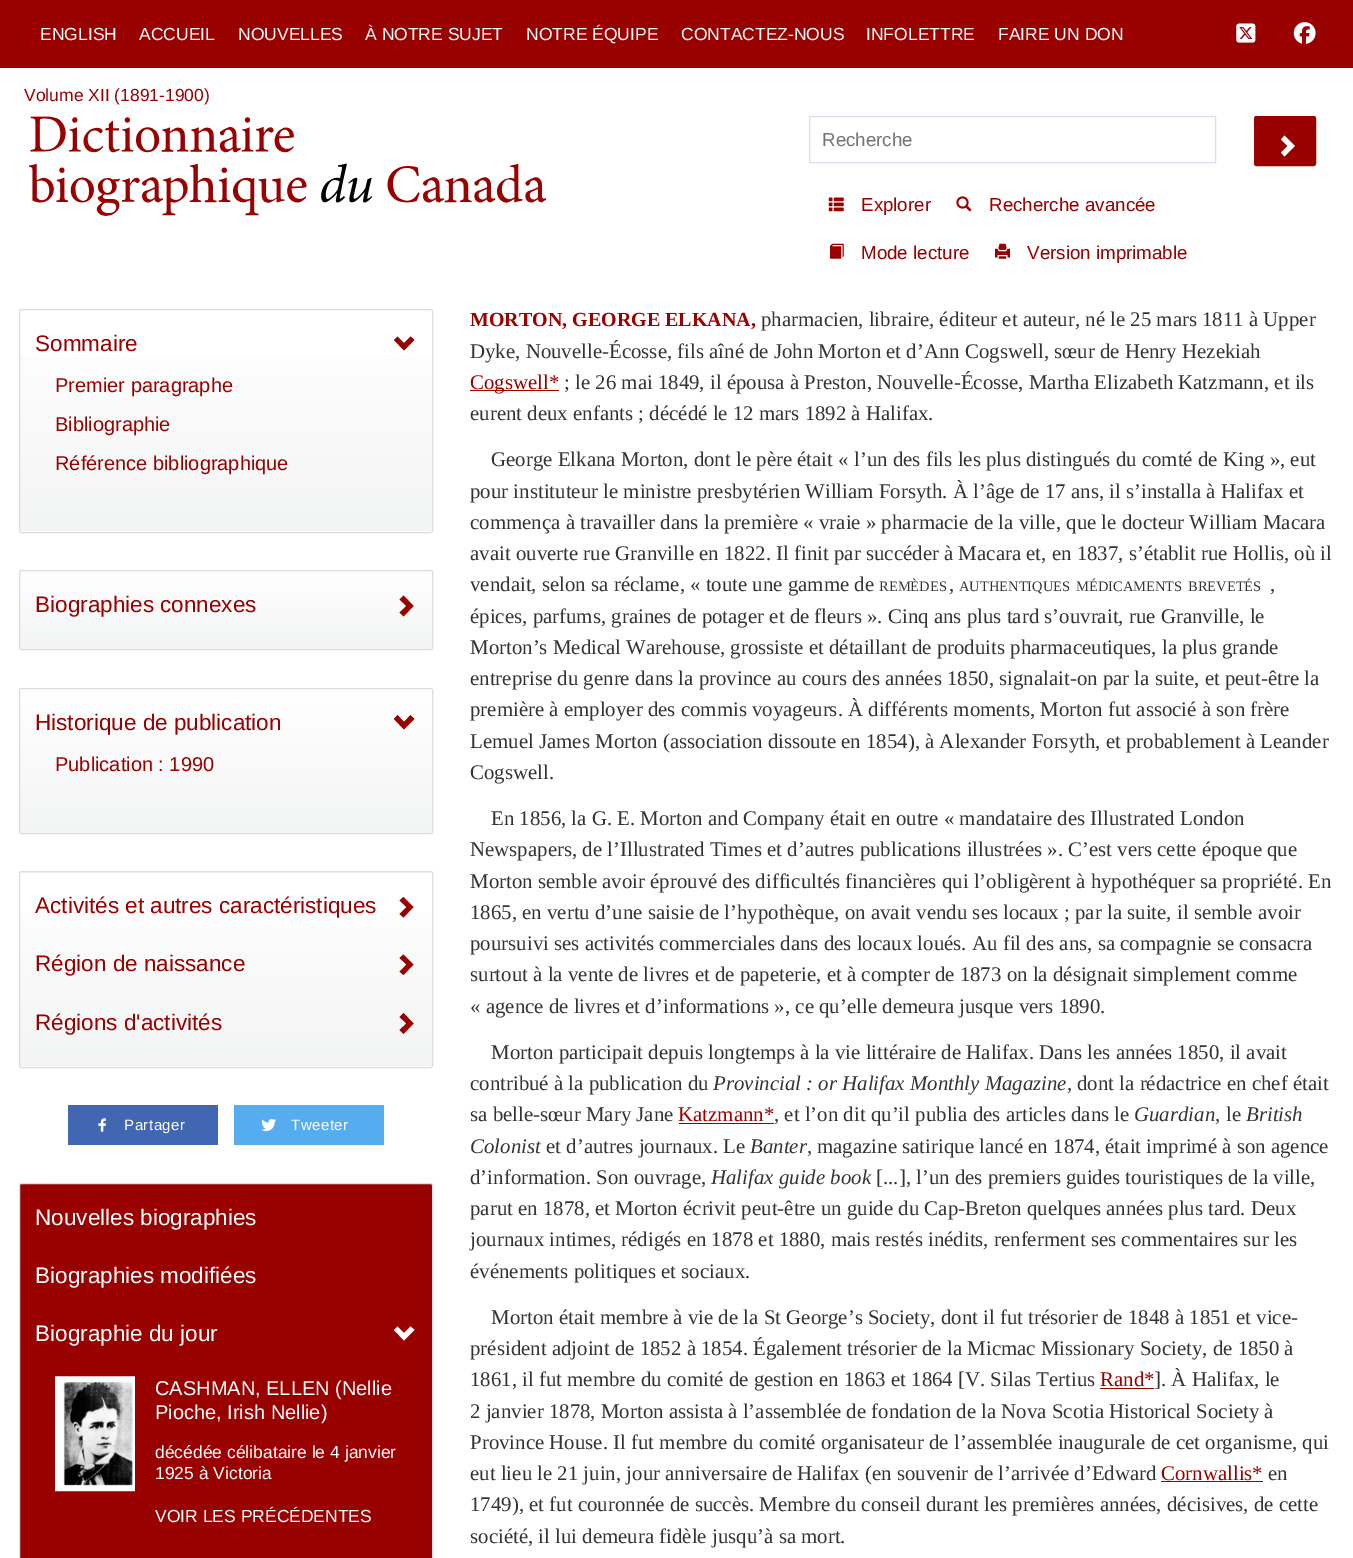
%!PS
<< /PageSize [1353 1558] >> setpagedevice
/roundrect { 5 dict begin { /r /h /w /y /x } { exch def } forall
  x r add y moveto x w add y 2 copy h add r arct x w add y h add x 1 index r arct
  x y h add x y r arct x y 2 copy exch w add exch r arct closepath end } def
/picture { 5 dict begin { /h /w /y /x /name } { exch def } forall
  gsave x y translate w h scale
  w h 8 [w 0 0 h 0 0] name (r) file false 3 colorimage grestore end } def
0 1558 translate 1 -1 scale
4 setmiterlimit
1 setgray
0 0 1353 1558 rectfill
0.6 0 0 setrgbcolor
0 0 1353 68 rectfill
/LiberationSans-Regular [17.5 0 0 -17.5 0 0] selectfont
1 setgray
40 40 moveto (ENGLISH) show
139 40 moveto (ACCUEIL) show
238 40 moveto (NOUVELLES) show
365 40 moveto (À NOTRE SUJET) show
526 40 moveto (NOTRE ÉQUIPE) show
681 40 moveto (CONTACTEZ-NOUS) show
866 40 moveto (INFOLETTRE) show
998 40 moveto (FAIRE UN DON) show
(img1.rgb) 1236 23 20 20 picture
(img2.rgb) 1293 22 23 22 picture
0.6 0 0 setrgbcolor
24 101 moveto (Volume XII \(1891-1900\)) show
(img3.rgb) 29 116 517 100 picture
0.863 0.867 0.933 setrgbcolor
809.5 116.5 406 46 rectstroke
/LiberationSans-Regular [18.75 0 0 -18.75 0 0] selectfont
0.459 setgray
822 146 moveto (Recherche) show
0.6 0 0 setrgbcolor
1254.5 116.5 61 49 2 roundrect gsave fill grestore
stroke
1 setgray
newpath 1295 146 moveto 1284.5 156.5 lineto 1281 152.5 lineto 1287.5 146 lineto 1281 139.5 lineto 1284.5 135.5 lineto closepath fill
(img4.rgb) 828 197 16 15 picture
0.6 0 0 setrgbcolor
861 211 moveto (Explorer) show
(img5.rgb) 956 196 16 16 picture
989 211 moveto (Recherche avancée) show
(img6.rgb) 830 243 14 16 picture
861 259 moveto (Mode lecture) show
(img7.rgb) 995 243 15 16 picture
1027 259 moveto (Version imprimable) show
gsave newpath 19 356 moveto 433 356 lineto 433 531 lineto 19 531 lineto closepath clip newpath
<< /ShadingType 2 /ColorSpace /DeviceRGB /Coords [226 310 226 531] /Extend [true true] /Function << /FunctionType 2 /Domain [0 1] /C0 [1 1 1] /C1 [0.953 0.957 0.957] /N 1 >> >> shfill grestore
0.863 0.867 0.871 setrgbcolor
19.5 309.5 413 223 2 roundrect stroke
/LiberationSans-Regular [22.5 0 0 -22.5 0 0] selectfont
0.6 0 0 setrgbcolor
35 351 moveto (Sommaire) show
newpath 414.5 340 moveto 404 350.5 lineto 394 340 lineto 397.5 336.5 lineto 404 343 lineto 410.5 336.5 lineto closepath fill
/LiberationSans-Regular [20 0 0 -20 0 0] selectfont
55 392 moveto (Premier paragraphe) show
55 431 moveto (Bibliographie) show
55 470 moveto (Référence bibliographique) show
gsave
19 570 414 80 2.5 roundrect clip newpath
gsave newpath 19 571 moveto 433 571 lineto 433 649 lineto 19 649 lineto closepath clip newpath
<< /ShadingType 2 /ColorSpace /DeviceRGB /Coords [226 571 226 649] /Extend [true true] /Function << /FunctionType 2 /Domain [0 1] /C0 [1 1 1] /C1 [0.953 0.957 0.957] /N 1 >> >> shfill grestore
grestore
0.863 0.867 0.871 setrgbcolor
19.5 570.5 413 79 2 roundrect stroke
/LiberationSans-Regular [22.5 0 0 -22.5 0 0] selectfont
0.6 0 0 setrgbcolor
35 612 moveto (Biographies connexes) show
newpath 413.5 606 moveto 403.5 616.5 lineto 399.5 612.5 lineto 406.5 606 lineto 399.5 599.5 lineto 403.5 595.5 lineto closepath fill
gsave
19 688 414 146 2.5 roundrect clip newpath
gsave newpath 19 689 moveto 433 689 lineto 433 833 lineto 19 833 lineto closepath clip newpath
<< /ShadingType 2 /ColorSpace /DeviceRGB /Coords [226 689 226 833] /Extend [true true] /Function << /FunctionType 2 /Domain [0 1] /C0 [1 1 1] /C1 [0.953 0.957 0.957] /N 1 >> >> shfill grestore
grestore
0.863 0.867 0.871 setrgbcolor
19.5 688.5 413 145 2 roundrect stroke
0.6 0 0 setrgbcolor
35 730 moveto (Historique de publication) show
newpath 414.5 719 moveto 404 729.5 lineto 394 719 lineto 397.5 715 lineto 404 722 lineto 410.5 715 lineto closepath fill
/LiberationSans-Regular [20 0 0 -20 0 0] selectfont
55 771 moveto (Publication : 1990) show
gsave
19 871 414 197 2.5 roundrect clip newpath
gsave newpath 19 871 moveto 433 871 lineto 433 873 lineto 19 873 lineto closepath clip newpath
<< /ShadingType 2 /ColorSpace /DeviceRGB /Coords [226 679 226 873] /Extend [true true] /Function << /FunctionType 2 /Domain [0 1] /C0 [1 1 1] /C1 [0.953 0.957 0.957] /N 1 >> >> shfill grestore
grestore
gsave newpath 19 913 moveto 433 913 lineto 433 1066 lineto 19 1066 lineto closepath clip newpath
<< /ShadingType 2 /ColorSpace /DeviceRGB /Coords [226 873 226 1066] /Extend [true true] /Function << /FunctionType 2 /Domain [0 1] /C0 [1 1 1] /C1 [0.953 0.957 0.957] /N 1 >> >> shfill grestore
0.863 0.867 0.871 setrgbcolor
19.5 871.5 413 196 2 roundrect stroke
/LiberationSans-Regular [22.5 0 0 -22.5 0 0] selectfont
0.6 0 0 setrgbcolor
35 913 moveto (Activités et autres caractéristiques) show
newpath 413.5 907 moveto 403.5 917.5 lineto 399.5 914 lineto 406.5 907 lineto 399.5 900.5 lineto 403.5 897 lineto closepath fill
35 971 moveto (Région de naissance) show
newpath 413.5 964.5 moveto 403.5 975 lineto 399.5 971.5 lineto 406.5 964.5 lineto 399.5 958 lineto 403.5 954.5 lineto closepath fill
35 1030 moveto (Régions d'activités) show
newpath 413.5 1023.5 moveto 403.5 1034 lineto 399.5 1030 lineto 406.5 1023.5 lineto 399.5 1017 lineto 403.5 1013 lineto closepath fill
0.259 0.404 0.698 setrgbcolor
68 1105 150 40 rectfill
(img8.rgb) 98 1118 8 14 picture
/LiberationSans-Regular [15 0 0 -15 0 0] selectfont
1 setgray
124 1130 moveto 0.5 0 (Partager) ashow
0.333 0.675 0.933 setrgbcolor
234 1105 150 40 rectfill
(img9.rgb) 261 1118 16 14 picture
1 setgray
291 1130 moveto 0.5 0 (Tweeter) ashow
0.6 0 0 setrgbcolor
19.5 1183.5 413 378 2 roundrect gsave fill grestore
0.863 0.867 0.871 setrgbcolor
stroke
/LiberationSans-Regular [22.5 0 0 -22.5 0 0] selectfont
1 setgray
35 1225 moveto (Nouvelles biographies) show
35 1283 moveto (Biographies modifiées) show
35 1341 moveto (Biographie du jour) show
newpath 414.5 1330 moveto 404 1340.5 lineto 394 1330 lineto 397.5 1326.5 lineto 404 1333 lineto 410.5 1326.5 lineto closepath fill
(img10.rgb) 55 1376 80 116 picture
/LiberationSans-Regular [20 0 0 -20 0 0] selectfont
155 1395 moveto (CASHMAN, ELLEN \(Nellie) show
155 1419 moveto (Pioche, Irish Nellie\)) show
/LiberationSans-Regular [17.5 0 0 -17.5 0 0] selectfont
155 1458 moveto (décédée célibataire le 4 janvier) show
155 1479 moveto (1925 à Victoria) show
155 1522 moveto (VOIR LES PRÉCÉDENTES) show
/LiberationSerif-Bold [20 0 0 -20 0 0] selectfont
0.6 0 0 setrgbcolor
470 326 moveto (MORTON, GEORGE ELKANA,) show
/LiberationSerif-Regular [20.85 0 0 -20.85 0 0] selectfont
0.2 setgray
761 326 moveto (pharmacien, libraire, éditeur et auteur, né le 25 mars 1811 à Upper) show
470 358 moveto (Dyke, Nouvelle-Écosse, fils aîné de John Morton et d’Ann Cogswell, sœur de Henry Hezekiah) show
0.6 0 0 setrgbcolor
470 390 89 1 rectfill
470 389 moveto (Cogswell*) show
0.2 setgray
564 389 moveto (; le 26 mai 1849, il épousa à Preston, Nouvelle-Écosse, Martha Elizabeth Katzmann, et ils) show
470 420 moveto (eurent deux enfants ; décédé le 12 mars 1892 à Halifax.) show
491 466 moveto (George Elkana Morton, dont le père était « l’un des fils les plus distingués du comté de King », eut) show
470 498 moveto (pour instituteur le ministre presbytérien William Forsyth. À l’âge de 17 ans, il s’installa à Halifax et) show
470 529 moveto (commença à travailler dans la première « vraie » pharmacie de la ville, que le docteur William Macara) show
470 560 moveto (avait ouverte rue Granville en 1822. Il finit par succéder à Macara et, en 1837, s’établit rue Hollis, où il) show
470 591 moveto (vendait, selon sa réclame, « toute une gamme de) show
/LiberationSerif-Regular [14.5 0 0 -14.5 0 0] selectfont
879 591 moveto (REMÈDES) show
/LiberationSerif-Regular [20.85 0 0 -20.85 0 0] selectfont
949 591 moveto (,) show
/LiberationSerif-Regular [14.5 0 0 -14.5 0 0] selectfont
959 591 moveto (AUTHENTIQUES) show
1076 591 moveto (MÉDICAMENTS) show
1188 591 moveto (BREVETÉS) show
/LiberationSerif-Regular [20.85 0 0 -20.85 0 0] selectfont
1270 591 moveto (,) show
470 623 moveto (épices, parfums, graines de potager et de fleurs ». Cinq ans plus tard s’ouvrait, rue Granville, le) show
470 654 moveto (Morton’s Medical Warehouse, grossiste et détaillant de produits pharmaceutiques, la plus grande) show
470 685 moveto (entreprise du genre dans la province au cours des années 1850, signalait-on par la suite, et peut-être la) show
470 716 moveto (première à employer des commis voyageurs. À différents moments, Morton fut associé à son frère) show
470 748 moveto (Lemuel James Morton \(association dissoute en 1854\), à Alexander Forsyth, et probablement à Leander) show
470 779 moveto (Cogswell.) show
491 825 moveto (En 1856, la G. E. Morton and Company était en outre « mandataire des Illustrated London) show
470 856 moveto (Newspapers, de l’Illustrated Times et d’autres publications illustrées ». C’est vers cette époque que) show
470 888 moveto (Morton semble avoir éprouvé des difficultés financières qui l’obligèrent à hypothéquer sa propriété. En) show
470 919 moveto (1865, en vertu d’une saisie de l’hypothèque, on avait vendu ses locaux ; par la suite, il semble avoir) show
470 950 moveto (poursuivi ses activités commerciales dans des locaux loués. Au fil des ans, sa compagnie se consacra) show
470 981 moveto (surtout à la vente de livres et de papeterie, et à compter de 1873 on la désignait simplement comme) show
470 1013 moveto (« agence de livres et d’informations », ce qu’elle demeura jusque vers 1890.) show
491 1059 moveto (Morton participait depuis longtemps à la vie littéraire de Halifax. Dans les années 1850, il avait) show
470 1090 moveto (contribué à la publication du) show
/LiberationSerif-Italic [20.85 0 0 -20.85 0 0] selectfont
713 1090 moveto (Provincial : or Halifax Monthly Magazine,) show
/LiberationSerif-Regular [20.85 0 0 -20.85 0 0] selectfont
1077 1090 moveto (dont la rédactrice en chef était) show
470 1121 moveto (sa belle-sœur Mary Jane) show
0.6 0 0 setrgbcolor
678 1121 moveto (Katzmann*) show
679 1123 95 1 rectfill
0.2 setgray
774 1121 moveto (, et l’on dit qu’il publia des articles dans le) show
/LiberationSerif-Italic [20.85 0 0 -20.85 0 0] selectfont
1134 1121 moveto (Guardian,) show
/LiberationSerif-Regular [20.85 0 0 -20.85 0 0] selectfont
1226 1121 moveto (le) show
/LiberationSerif-Italic [20.85 0 0 -20.85 0 0] selectfont
1246 1121 moveto (British) show
470 1153 moveto (Colonist) show
/LiberationSerif-Regular [20.85 0 0 -20.85 0 0] selectfont
546 1153 moveto (et d’autres journaux. Le) show
/LiberationSerif-Italic [20.85 0 0 -20.85 0 0] selectfont
750 1153 moveto (Banter,) show
/LiberationSerif-Regular [20.85 0 0 -20.85 0 0] selectfont
817 1153 moveto (magazine satirique lancé en 1874, était imprimé à son agence) show
470 1184 moveto (d’information. Son ouvrage,) show
/LiberationSerif-Italic [20.85 0 0 -20.85 0 0] selectfont
711 1184 moveto (Halifax guide book) show
/LiberationSerif-Regular [20.85 0 0 -20.85 0 0] selectfont
876 1184 moveto ([...], l’un des premiers guides touristiques de la ville,) show
470 1215 moveto (parut en 1878, et Morton écrivit peut-être un guide du Cap-Breton quelques années plus tard. Deux) show
470 1246 moveto (journaux intimes, rédigés en 1878 et 1880, mais restés inédits, renferment ses commentaires sur les) show
470 1278 moveto (événements politiques et sociaux.) show
491 1324 moveto (Morton était membre à vie de la St George’s Society, dont il fut trésorier de 1848 à 1851 et vice-) show
470 1355 moveto (président adjoint de 1852 à 1854. Également trésorier de la Micmac Missionary Society, de 1850 à) show
470 1386 moveto (1861, il fut membre du comité de gestion en 1863 et 1864 [V. Silas Tertius) show
0.6 0 0 setrgbcolor
1100 1386 moveto (Rand*) show
1100 1388 54 1 rectfill
0.2 setgray
1154 1386 moveto (]. À Halifax, le) show
470 1418 moveto (2 janvier 1878, Morton assista à l’assemblée de fondation de la Nova Scotia Historical Society à) show
470 1449 moveto (Province House. Il fut membre du comité organisateur de l’assemblée inaugurale de cet organisme, qui) show
470 1480 moveto (eut lieu le 21 juin, jour anniversaire de Halifax \(en souvenir de l’arrivée d’Edward) show
0.6 0 0 setrgbcolor
1161 1480 moveto (Cornwallis*) show
1161 1481 102 1 rectfill
0.2 setgray
1268 1480 moveto (en) show
470 1511 moveto (1749\), et fut couronnée de succès. Membre du conseil durant les premières années, décisives, de cette) show
470 1543 moveto (société, il lui demeura fidèle jusqu’à sa mort.) show
showpage
